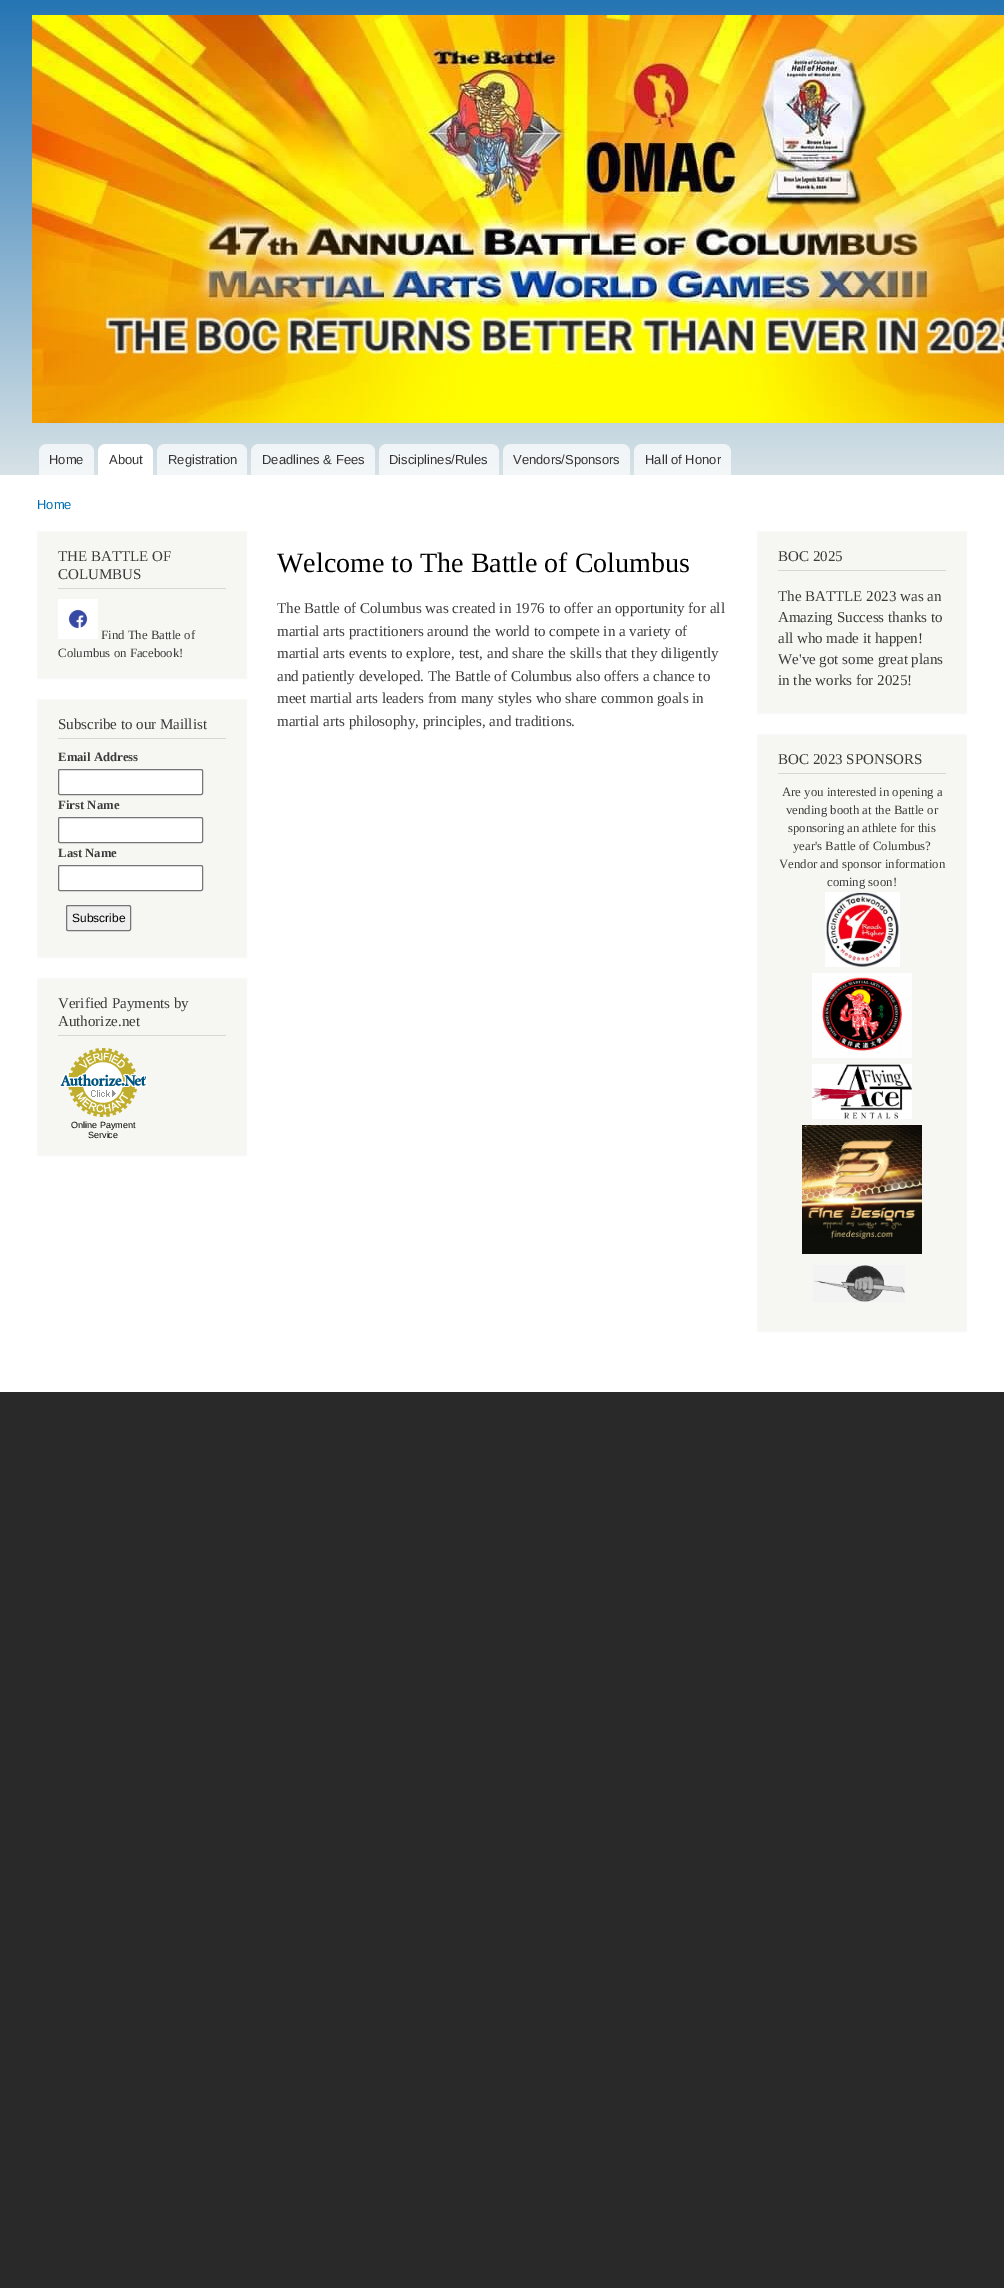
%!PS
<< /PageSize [1004 2288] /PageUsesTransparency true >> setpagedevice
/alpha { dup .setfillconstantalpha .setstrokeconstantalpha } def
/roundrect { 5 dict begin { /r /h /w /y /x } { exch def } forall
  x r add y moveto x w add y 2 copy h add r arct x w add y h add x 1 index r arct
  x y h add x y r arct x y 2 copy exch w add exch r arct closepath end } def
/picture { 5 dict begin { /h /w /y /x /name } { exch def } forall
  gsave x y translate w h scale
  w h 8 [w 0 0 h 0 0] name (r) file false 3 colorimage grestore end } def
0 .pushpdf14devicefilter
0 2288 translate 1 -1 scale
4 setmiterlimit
0.161 setgray
0 0 1004 2288 rectfill
1 setgray
0 475 1004 917 rectfill
gsave newpath 0 0 moveto 1004 0 lineto 1004 475 lineto 0 475 lineto closepath clip newpath
<< /ShadingType 2 /ColorSpace /DeviceRGB /Coords [502 0 502 475] /Extend [true true] /Function << /FunctionType 2 /Domain [0 1] /C0 [0.145 0.459 0.706] /C1 [0.843 0.886 0.902] /N 1 >> >> shfill grestore
(img1.rgb) 32 15 972 408 picture
0.7 alpha
newpath 47 444 moveto 86 444 lineto 90.5 444 94 447.5 94 452 curveto 94 475 lineto 39 475 lineto 39 452 lineto 39 447.5 42.5 444 47 444 curveto closepath fill
/LiberationSans-Regular [13 0 0 -13 0 0] selectfont
1 alpha
0.2 setgray
49 464 moveto (Home) show
1 setgray
newpath 106 444 moveto 145 444 lineto 149.5 444 153 447.5 153 452 curveto 153 475 lineto 98 475 lineto 98 452 lineto 98 447.5 101.5 444 106 444 curveto closepath fill
0.2 setgray
109 464 moveto (About) show
0.7 alpha
1 setgray
newpath 165 444 moveto 239 444 lineto 243.5 444 247 447.5 247 452 curveto 247 475 lineto 157 475 lineto 157 452 lineto 157 447.5 160.5 444 165 444 curveto closepath fill
1 alpha
0.2 setgray
168 464 moveto (Registration) show
0.7 alpha
1 setgray
newpath 259 444 moveto 367 444 lineto 371.5 444 375 447.5 375 452 curveto 375 475 lineto 251 475 lineto 251 452 lineto 251 447.5 254.5 444 259 444 curveto closepath fill
1 alpha
0.2 setgray
262 464 moveto (Deadlines & Fees) show
0.7 alpha
1 setgray
newpath 387 444 moveto 491 444 lineto 495.5 444 499 447.5 499 452 curveto 499 475 lineto 379 475 lineto 379 452 lineto 379 447.5 382.5 444 387 444 curveto closepath fill
1 alpha
0.2 setgray
389 464 moveto (Disciplines/Rules) show
0.7 alpha
1 setgray
newpath 511 444 moveto 622 444 lineto 626.5 444 630 447.5 630 452 curveto 630 475 lineto 503 475 lineto 503 452 lineto 503 447.5 506.5 444 511 444 curveto closepath fill
1 alpha
0.2 setgray
513 464 moveto (Vendors/Sponsors) show
0.7 alpha
1 setgray
newpath 642 444 moveto 723 444 lineto 727.5 444 731 447.5 731 452 curveto 731 475 lineto 634 475 lineto 634 452 lineto 634 447.5 637.5 444 642 444 curveto closepath fill
1 alpha
0.2 setgray
645 464 moveto (Hall of Honor) show
0 0.439 0.702 setrgbcolor
37 509 moveto (Home) show
0.965 0.965 0.949 setrgbcolor
newpath 37.5 531.5 moveto 246.5 531.5 lineto 246.5 678.5 lineto 37.5 678.5 lineto closepath gsave fill grestore
0.976 setgray
stroke
0.839 setgray
58 588 168 1 rectfill
/LiberationSerif-Regular [15 0 0 -15 0 0] selectfont
0.231 setgray
58 561 moveto (THE BATTLE OF) show
58 579 moveto (COLUMBUS) show
(img2.rgb) 58 599 40 40 picture
/LiberationSerif-Regular [12.75 0 0 -12.75 0 0] selectfont
101 639 moveto (Find The Battle of) show
58 657 moveto (Columbus on Facebook!) show
0.965 0.965 0.949 setrgbcolor
newpath 37.5 699.5 moveto 246.5 699.5 lineto 246.5 957.5 lineto 37.5 957.5 lineto closepath gsave fill grestore
0.976 setgray
stroke
0.839 setgray
58 738 168 1 rectfill
/LiberationSerif-Regular [15 0 0 -15 0 0] selectfont
0.231 setgray
58 729 moveto (Subscribe to our Maillist) show
/LiberationSerif-Bold [12.75 0 0 -12.75 0 0] selectfont
58 761 moveto (Email Address) show
1 setgray
58.5 769.5 144 25 1.5 roundrect gsave fill grestore
0.463 setgray
stroke
0.231 setgray
58 809 moveto (First Name) show
1 setgray
58.5 817.5 144 25 1.5 roundrect gsave fill grestore
0.463 setgray
stroke
0.231 setgray
58 857 moveto (Last Name) show
1 setgray
58.5 865.5 144 25 1.5 roundrect gsave fill grestore
0.463 setgray
stroke
0.937 setgray
66.5 905.5 64 25 1.5 roundrect gsave fill grestore
0.463 setgray
stroke
/LiberationSans-Regular [12 0 0 -12 0 0] selectfont
0 setgray
72 922 moveto (Subscribe) show
0.965 0.965 0.949 setrgbcolor
newpath 37.5 978.5 moveto 246.5 978.5 lineto 246.5 1155.5 lineto 37.5 1155.5 lineto closepath gsave fill grestore
0.976 setgray
stroke
0.839 setgray
58 1035 168 1 rectfill
/LiberationSerif-Regular [15 0 0 -15 0 0] selectfont
0.231 setgray
58 1008 moveto (Verified Payments by) show
58 1026 moveto (Authorize.net) show
(img3.rgb) 59 1048 88 69 picture
/LiberationSans-Regular [9 0 0 -9 0 0] selectfont
0 setgray
71 1128 moveto (Online Payment) show
88 1138 moveto (Service) show
/LiberationSerif-Regular [28 0 0 -28 0 0] selectfont
277 572 moveto (Welcome to The Battle of Columbus) show
/LiberationSerif-Regular [15 0 0 -15 0 0] selectfont
0.231 setgray
277 613 moveto (The Battle of Columbus was created in 1976 to offer an opportunity for all) show
277 636 moveto (martial arts practitioners around the world to compete in a variety of) show
277 658 moveto (martial arts events to explore, test, and share the skills that they diligently) show
277 681 moveto (and patiently developed. The Battle of Columbus also offers a chance to) show
277 703 moveto (meet martial arts leaders from many styles who share common goals in) show
277 726 moveto (martial arts philosophy, principles, and traditions.) show
0.965 0.965 0.949 setrgbcolor
newpath 757.5 531.5 moveto 966.5 531.5 lineto 966.5 713.5 lineto 757.5 713.5 lineto closepath gsave fill grestore
0.976 setgray
stroke
0.839 setgray
778 570 168 1 rectfill
0.231 setgray
778 561 moveto (BOC 2025) show
778 601 moveto (The BATTLE 2023 was an) show
778 622 moveto (Amazing Success thanks to) show
778 643 moveto (all who made it happen!) show
778 664 moveto (We've got some great plans) show
778 685 moveto (in the works for 2025!) show
0.965 0.965 0.949 setrgbcolor
newpath 757.5 734.5 moveto 966.5 734.5 lineto 966.5 1331.5 lineto 757.5 1331.5 lineto closepath gsave fill grestore
0.976 setgray
stroke
0.839 setgray
778 773 168 1 rectfill
0.231 setgray
778 764 moveto (BOC 2023 SPONSORS) show
/LiberationSerif-Regular [12.75 0 0 -12.75 0 0] selectfont
782 796 moveto (Are you interested in opening a) show
786 814 moveto (vending booth at the Battle or) show
788 832 moveto (sponsoring an athlete for this) show
793 850 moveto (year's Battle of Columbus?) show
779 868 moveto (Vendor and sponsor information) show
827 886 moveto (coming soon!) show
(img4.rgb) 825 892 75 75 picture
(img5.rgb) 812 973 100 85 picture
(img6.rgb) 812 1064 100 55 picture
(img7.rgb) 802 1125 120 129 picture
(img8.rgb) 813 1265 92 37 picture
.poppdf14devicefilter showpage
